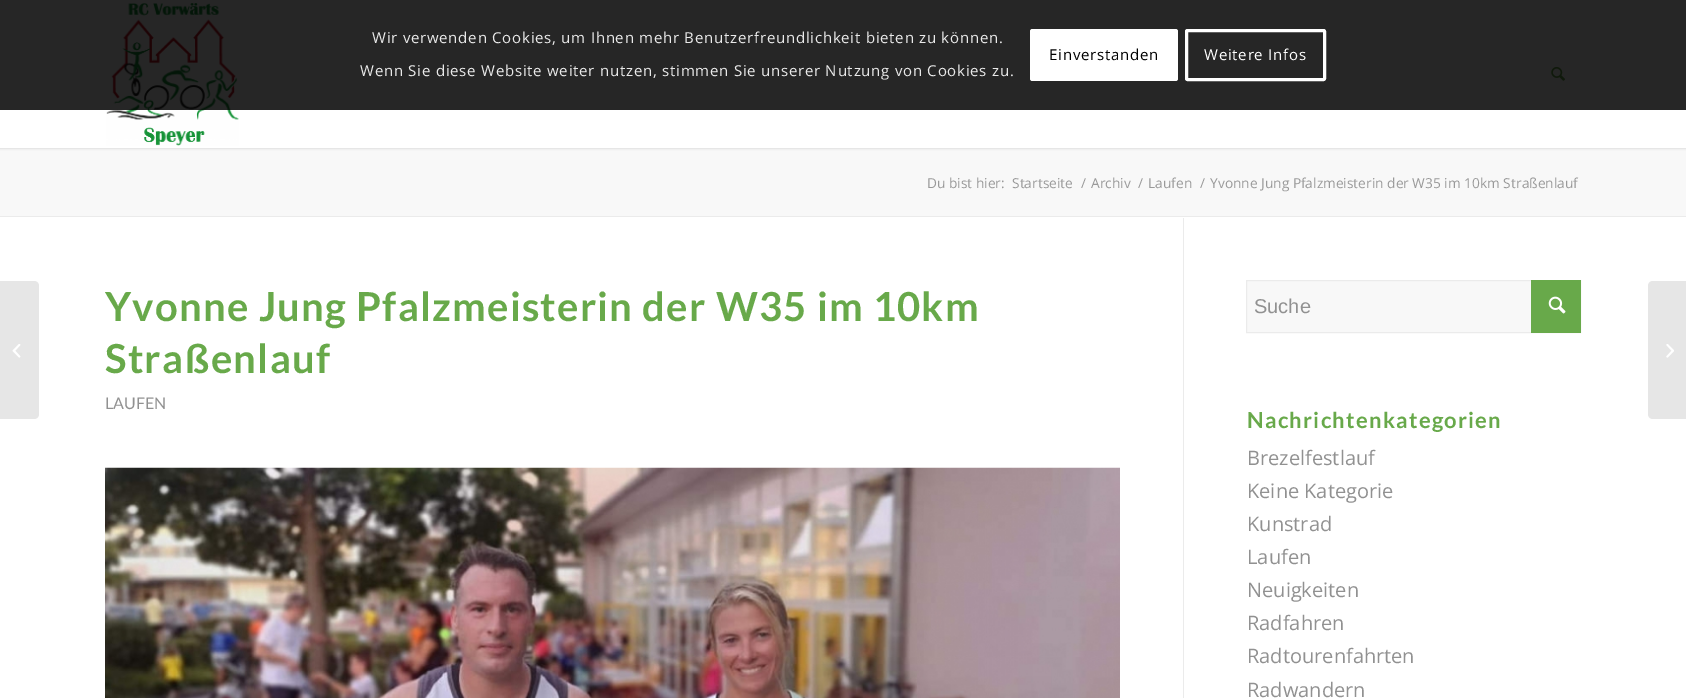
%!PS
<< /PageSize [1686 698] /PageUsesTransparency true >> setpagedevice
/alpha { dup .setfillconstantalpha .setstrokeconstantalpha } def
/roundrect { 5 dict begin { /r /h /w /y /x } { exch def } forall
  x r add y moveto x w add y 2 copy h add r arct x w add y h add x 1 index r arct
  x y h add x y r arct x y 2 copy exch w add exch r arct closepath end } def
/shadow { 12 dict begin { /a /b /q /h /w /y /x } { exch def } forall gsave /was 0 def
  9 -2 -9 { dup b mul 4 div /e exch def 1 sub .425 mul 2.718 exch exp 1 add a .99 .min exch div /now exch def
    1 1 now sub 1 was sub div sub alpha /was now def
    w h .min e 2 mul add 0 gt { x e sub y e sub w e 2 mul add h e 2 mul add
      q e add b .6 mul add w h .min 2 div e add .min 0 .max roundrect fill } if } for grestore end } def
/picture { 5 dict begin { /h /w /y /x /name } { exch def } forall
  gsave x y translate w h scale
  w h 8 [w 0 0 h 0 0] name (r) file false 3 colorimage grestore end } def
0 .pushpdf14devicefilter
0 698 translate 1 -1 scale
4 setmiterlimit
1 setgray
0 0 1686 698 rectfill
0.973 setgray
0 148 1686 68 rectfill
0 setgray
-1 -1 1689 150 0 1 0.1 shadow
1 setgray
0 0 1686 148 rectfill
(img1.rgb) 106 3 133 143 picture
(img2.rgb) 1551 66 14 15 picture
0.85 alpha
0 setgray
0 0 1686 110 rectfill
/OpenSans-Regular [15 0 0 -15 0 0] selectfont
1 alpha
0.914 setgray
372 43 moveto 0.75 0 (Wir verwenden Cookies, um Ihnen mehr Benutzerfreundlichkeit bieten zu können.) ashow
360 76 moveto 0.75 0 (Wenn Sie diese Website weiter nutzen, stimmen Sie unserer Nutzung von Cookies zu.) ashow
1 setgray
1030 29 148 52 2.5 roundrect fill
0 setgray
1049 60 moveto 0.75 0 (Einverstanden) ashow
1 setgray
3 setlinewidth
1186.5 30.5 138 49 1 roundrect stroke
1204 60 moveto 0.75 0 (Weitere Infos) ashow
0.902 setgray
newpath 0 281 moveto 34 281 lineto 37 281 39 283 39 286 curveto 39 414 lineto 39 417 37 419 34 419 curveto 0 419 lineto closepath fill
(img3.rgb) 12 344 9 14 picture
/OpenSans-Regular [13.75 0 0 -13.75 0 0] selectfont
0.6 setgray
927 188 moveto (Du bist hier:) show
1012 188 moveto (Startseite) show
1081 188 moveto (/) show
1091 188 moveto (Archiv) show
1138 188 moveto (/) show
1148 188 moveto (Laufen) show
1200 188 moveto (/) show
1210 188 moveto (Yvonne Jung Pfalzmeisterin der W35 im 10km Straßenlauf) show
0.922 setgray
0 216 1686 1 rectfill
1183 218 1 480 rectfill
/Lato-Bold [40 0 0 -40 0 0] selectfont
0.408 0.663 0.29 setrgbcolor
105 321 moveto 1.25 0 (Yvonne Jung Pfalzmeisterin der W35 im 10km) ashow
105 373 moveto 1.25 0 (Straßenlauf) ashow
/Lato-Regular [16 0 0 -16 0 0] selectfont
0.569 setgray
105 409 moveto (LAUFEN) show
(img4.rgb) 105 467 1015 231 picture
0.973 setgray
1247 281 284 51 rectfill
0.922 setgray
1 setlinewidth
1246.5 280.5 334 52 rectstroke
/LiberationSans-Regular [20 0 0 -20 0 0] selectfont
0.569 setgray
1254 313 moveto (Suche) show
0.408 0.663 0.29 setrgbcolor
1531 280 50 53 rectfill
(img5.rgb) 1548 296 18 18 picture
/Lato-Bold [22 0 0 -22 0 0] selectfont
1247 428 moveto 1.25 0 (Nachrichtenkategorien) ashow
/OpenSans-Regular [20 0 0 -20 0 0] selectfont
0.569 setgray
1247 465 moveto (Brezelfestlauf) show
1247 498 moveto (Keine Kategorie) show
1247 531 moveto (Kunstrad) show
1247 564 moveto (Laufen) show
1247 597 moveto (Neuigkeiten) show
1247 630 moveto (Radfahren) show
1247 663 moveto (Radtourenfahrten) show
1247 697 moveto (Radwandern) show
0.902 setgray
newpath 1653 281 moveto 1686 281 lineto 1686 419 lineto 1653 419 lineto 1650 419 1648 417 1648 414 curveto 1648 286 lineto 1648 283 1650 281 1653 281 curveto closepath fill
(img6.rgb) 1666 344 8 14 picture
.poppdf14devicefilter showpage
